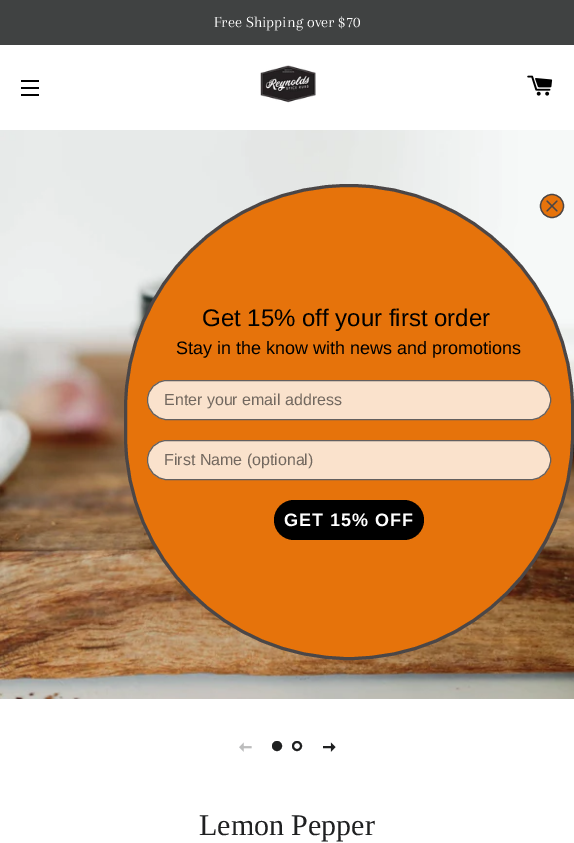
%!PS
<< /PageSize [574 843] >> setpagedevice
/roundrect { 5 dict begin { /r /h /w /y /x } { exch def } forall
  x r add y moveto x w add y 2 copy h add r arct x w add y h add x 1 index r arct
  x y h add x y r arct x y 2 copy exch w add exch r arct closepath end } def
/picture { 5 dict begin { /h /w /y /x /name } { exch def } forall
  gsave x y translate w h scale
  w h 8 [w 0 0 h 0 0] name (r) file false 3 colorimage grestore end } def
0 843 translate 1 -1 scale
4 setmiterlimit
1 setgray
0 0 574 843 rectfill
0.251 0.259 0.259 setrgbcolor
0 0 574 45 rectfill
/Arapey-Regular [16 0 0 -16 0 0] selectfont
1 setgray
214 27 moveto (Free Shipping over $70) show
0 setgray
21 80 18 2 rectfill
21 87 18 2 rectfill
21 94 18 2 rectfill
(img1.rgb) 260 65 56 38 picture
(img2.rgb) 527 75 26 21 picture
(img3.rgb) 0 130 574 569 picture
0.902 0.451 0.043 setrgbcolor
125.5 185.5 447 473 223.5 roundrect gsave fill grestore
0.294 0.275 0.275 setrgbcolor
3 setlinewidth
stroke
0.902 0.451 0.043 setrgbcolor
newpath 552 206 11.5 0 360 arc closepath gsave fill grestore
0.294 0.275 0.275 setrgbcolor
1.2 setlinewidth
stroke
1 setlinecap
1 setlinejoin
newpath 547 201 moveto 557 211 lineto 547 211 moveto 557 201 lineto closepath stroke
/LiberationSans-Regular [24 0 0 -24 0 0] selectfont
0 setgray
202 326 moveto (Get 15% off your first order) show
/LiberationSans-Regular [18 0 0 -18 0 0] selectfont
176 354 moveto (Stay in the know with news and promotions) show
0.98 0.886 0.8 setrgbcolor
147.5 380.5 403 39 19.5 roundrect gsave fill grestore
0.388 0.376 0.376 setrgbcolor
1 setlinewidth
0 setlinecap
0 setlinejoin
stroke
/LiberationSans-Regular [16 0 0 -16 0 0] selectfont
0.447 0.408 0.373 setrgbcolor
164 405 moveto (Enter your email address) show
0.98 0.886 0.8 setrgbcolor
147.5 440.5 403 39 19.5 roundrect gsave fill grestore
0.388 0.376 0.376 setrgbcolor
stroke
0.447 0.408 0.373 setrgbcolor
164 465 moveto (First Name \(optional\)) show
0 setgray
274 500 150 40 20 roundrect fill
/LiberationSans-Bold [18 0 0 -18 0 0] selectfont
1 setgray
284 526 moveto 1 0 (GET 15% OFF) ashow
(img4.rgb) 239 742 13 10 picture
0.122 0.125 0.129 setrgbcolor
newpath 277 746 4 0 360 arc closepath gsave fill grestore
2 setlinewidth
stroke
newpath 297 746 4 0 360 arc closepath stroke
(img5.rgb) 323 742 13 10 picture
/LiberationSerif-Regular [30 0 0 -30 0 0] selectfont
199 835 moveto (Lemon Pepper) show
showpage
